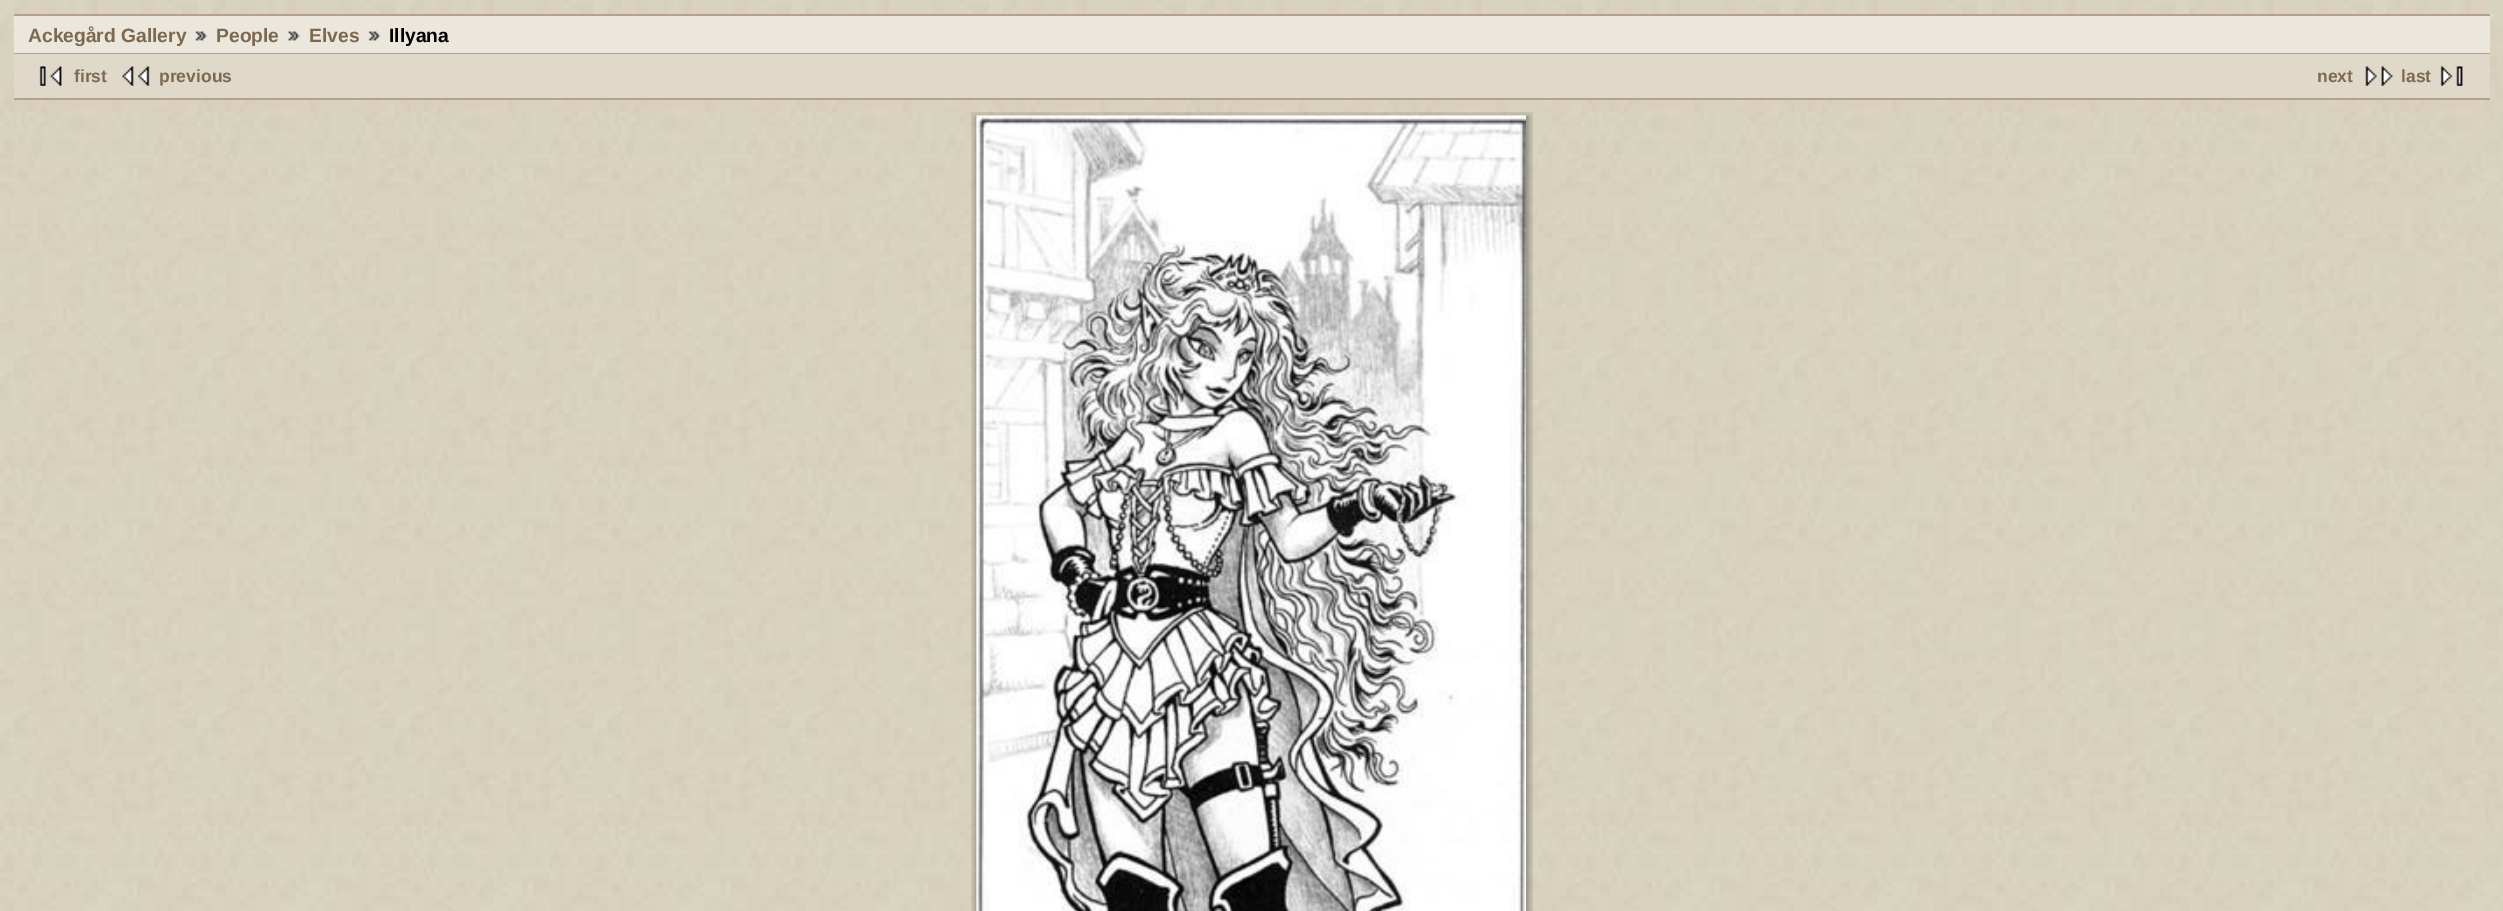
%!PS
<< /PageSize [2503 911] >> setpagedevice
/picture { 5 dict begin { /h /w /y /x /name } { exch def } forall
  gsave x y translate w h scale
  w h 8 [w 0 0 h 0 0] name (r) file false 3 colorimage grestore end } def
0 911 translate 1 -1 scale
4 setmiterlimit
1 setgray
0 0 2503 911 rectfill
(img1.rgb) 0 0 2503 911 picture
0.922 0.906 0.863 setrgbcolor
14 16 2476 37 rectfill
0.706 0.631 0.533 setrgbcolor
14 14 2476 2 rectfill
14 53 2476 1 rectfill
/LiberationSans-Bold [19.25 0 0 -19.25 0 0] selectfont
0.49 0.408 0.314 setrgbcolor
28 42 moveto (Ackegård Gallery) show
(img2.rgb) 195 31 12 10 picture
216 42 moveto (People) show
(img3.rgb) 288 31 12 10 picture
309 42 moveto (Elves) show
(img4.rgb) 368 31 13 10 picture
0 setgray
389 42 moveto (Illyana) show
0.878 0.851 0.792 setrgbcolor
14 54 2476 44 rectfill
0.706 0.631 0.533 setrgbcolor
14 98 2476 2 rectfill
(img5.rgb) 39 66 23 20 picture
/LiberationSans-Bold [17.5 0 0 -17.5 0 0] selectfont
0.49 0.408 0.314 setrgbcolor
74 82 moveto (first) show
(img6.rgb) 122 66 28 20 picture
159 82 moveto (previous) show
2317 82 moveto (next) show
(img7.rgb) 2365 66 28 20 picture
2401 82 moveto (last) show
(img8.rgb) 2440 66 23 20 picture
(img9.rgb) 971 112 6 4 picture
(img10.rgb) 976 112 550 4 picture
(img11.rgb) 1526 112 7 4 picture
(img12.rgb) 971 115 6 796 picture
(img13.rgb) 976 115 550 796 picture
(img14.rgb) 1526 115 7 796 picture
showpage
